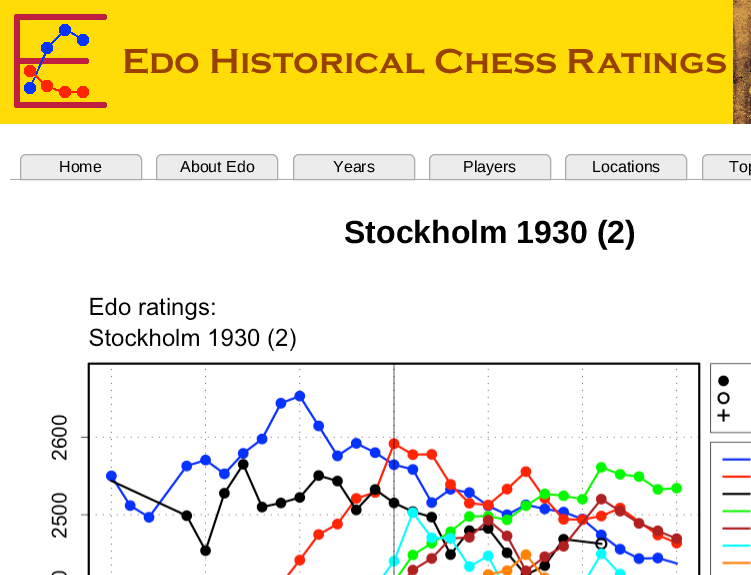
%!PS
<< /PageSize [751 575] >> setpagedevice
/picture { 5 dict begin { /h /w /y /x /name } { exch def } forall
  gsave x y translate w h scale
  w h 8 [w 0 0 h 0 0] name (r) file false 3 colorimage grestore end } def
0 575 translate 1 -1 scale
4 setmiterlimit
1 setgray
0 0 751 575 rectfill
(img1.rgb) 0 0 751 124 picture
0.925 setgray
newpath 26 154.5 moveto 136 154.5 lineto 139 154.5 141.5 157 141.5 160 curveto 141.5 179.5 lineto 20.5 179.5 lineto 20.5 160 lineto 20.5 157 23 154.5 26 154.5 curveto closepath gsave fill grestore
0.667 setgray
stroke
/LiberationSans-Regular [16 0 0 -16 0 0] selectfont
0 setgray
59 172 moveto (Home) show
0.925 setgray
newpath 162 154.5 moveto 272 154.5 lineto 275 154.5 277.5 157 277.5 160 curveto 277.5 179.5 lineto 156.5 179.5 lineto 156.5 160 lineto 156.5 157 159 154.5 162 154.5 curveto closepath gsave fill grestore
0.667 setgray
stroke
0 setgray
180 172 moveto (About Edo) show
0.925 setgray
newpath 299 154.5 moveto 409 154.5 lineto 412 154.5 414.5 157 414.5 160 curveto 414.5 179.5 lineto 293.5 179.5 lineto 293.5 160 lineto 293.5 157 296 154.5 299 154.5 curveto closepath gsave fill grestore
0.667 setgray
stroke
0 setgray
333 172 moveto (Years) show
0.925 setgray
newpath 435 154.5 moveto 545 154.5 lineto 548 154.5 550.5 157 550.5 160 curveto 550.5 179.5 lineto 429.5 179.5 lineto 429.5 160 lineto 429.5 157 432 154.5 435 154.5 curveto closepath gsave fill grestore
0.667 setgray
stroke
0 setgray
463 172 moveto (Players) show
0.925 setgray
newpath 571 154.5 moveto 681 154.5 lineto 684 154.5 686.5 157 686.5 160 curveto 686.5 179.5 lineto 565.5 179.5 lineto 565.5 160 lineto 565.5 157 568 154.5 571 154.5 curveto closepath gsave fill grestore
0.667 setgray
stroke
0 setgray
592 172 moveto (Locations) show
0.925 setgray
newpath 708 154.5 moveto 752 154.5 lineto 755 154.5 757.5 157 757.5 160 curveto 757.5 179.5 lineto 702.5 179.5 lineto 702.5 160 lineto 702.5 157 705 154.5 708 154.5 curveto closepath gsave fill grestore
0.667 setgray
stroke
0 setgray
729 172 moveto (Top) show
0.667 setgray
10 179 692 1 rectfill
/LiberationSans-Bold [32 0 0 -32 0 0] selectfont
0 setgray
344 243 moveto (Stockholm 1930 \(2\)) show
(img2.rgb) 51 297 700 278 picture
showpage
